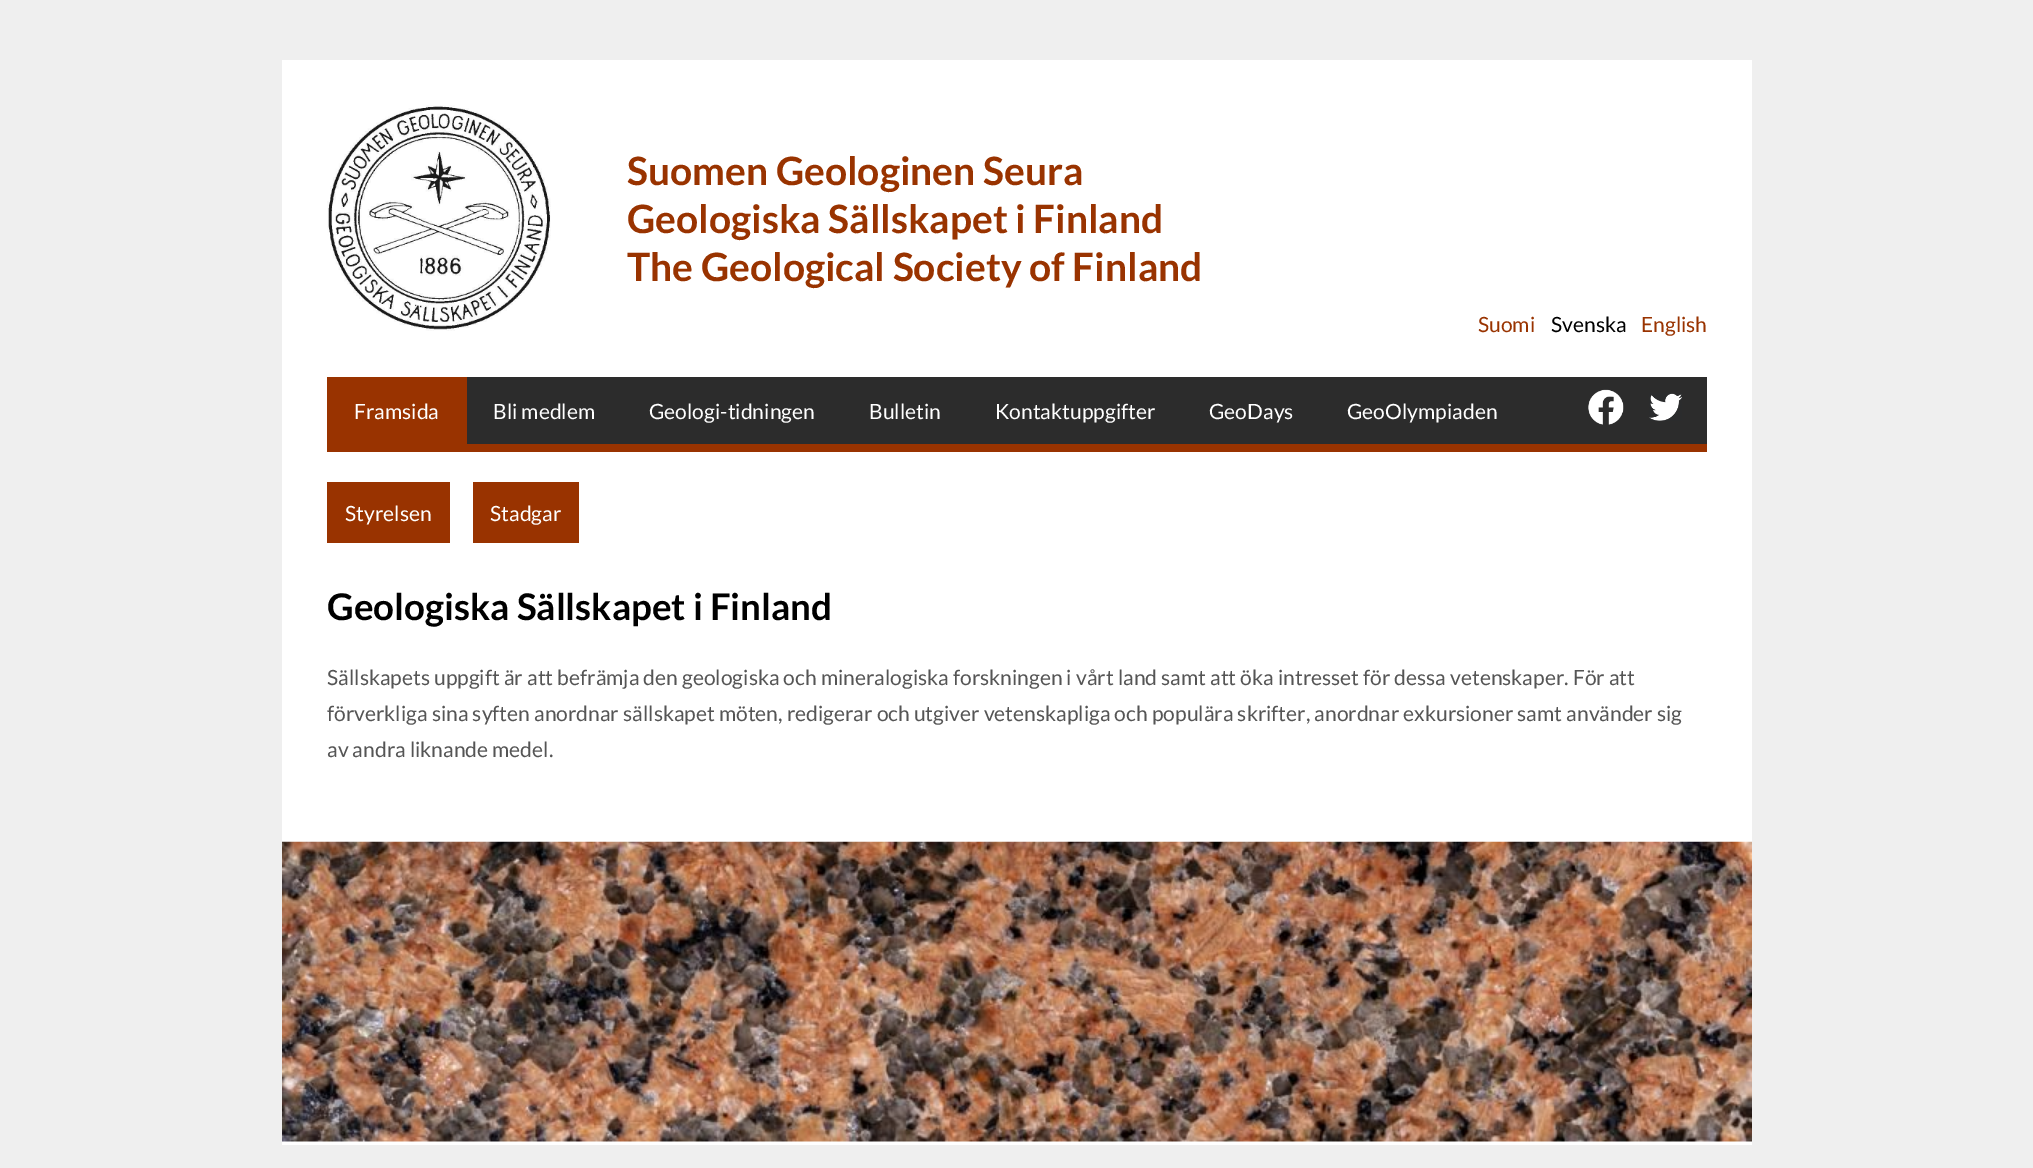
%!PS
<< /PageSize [2033 1168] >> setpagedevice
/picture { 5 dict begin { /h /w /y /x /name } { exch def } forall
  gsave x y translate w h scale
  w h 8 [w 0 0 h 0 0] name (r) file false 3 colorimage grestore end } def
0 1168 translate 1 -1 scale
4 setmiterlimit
0.937 setgray
0 0 2033 1168 rectfill
1 setgray
282 60 1470 1085 rectfill
(img1.rgb) 327 105 224 226 picture
/Lato-Bold [39 0 0 -39 0 0] selectfont
0.6 0.2 0 setrgbcolor
627 185 moveto (Suomen Geologinen Seura) show
627 233 moveto (Geologiska Sällskapet i Finland) show
627 281 moveto (The Geological Society of Finland) show
/Lato-Regular [21 0 0 -21 0 0] selectfont
1478 332 moveto (Suomi) show
0 setgray
1551 332 moveto (Svenska) show
0.6 0.2 0 setrgbcolor
1641 332 moveto (English) show
0.173 setgray
467 377 1240 67 rectfill
0.6 0.2 0 setrgbcolor
327 444 1380 8 rectfill
327 377 140 67 rectfill
1 setgray
354 419 moveto (Framsida) show
493 419 moveto (Bli medlem) show
649 419 moveto (Geologi-tidningen) show
869 419 moveto (Bulletin) show
995 419 moveto (Kontaktuppgifter) show
1209 419 moveto (GeoDays) show
1347 419 moveto (GeoOlympiaden) show
(img2.rgb) 1588 389 36 36 picture
(img3.rgb) 1649 393 33 28 picture
0.6 0.2 0 setrgbcolor
327 482 123 61 rectfill
1 setgray
345 521 moveto (Styrelsen) show
0.6 0.2 0 setrgbcolor
473 482 106 61 rectfill
1 setgray
490 521 moveto (Stadgar) show
/Lato-Bold [36.75 0 0 -36.75 0 0] selectfont
0 setgray
327 620 moveto (Geologiska Sällskapet i Finland) show
/Lato-Regular [21 0 0 -21 0 0] selectfont
0.333 setgray
327 685 moveto (Sällskapets uppgift är att befrämja den geologiska och mineralogiska forskningen i vårt land samt att öka intresset för dessa vetenskaper. För att) show
327 721 moveto (förverkliga sina syften anordnar sällskapet möten, redigerar och utgiver vetenskapliga och populära skrifter, anordnar exkursioner samt använder sig) show
327 757 moveto (av andra liknande medel.) show
(img4.rgb) 282 841 1470 301 picture
showpage
